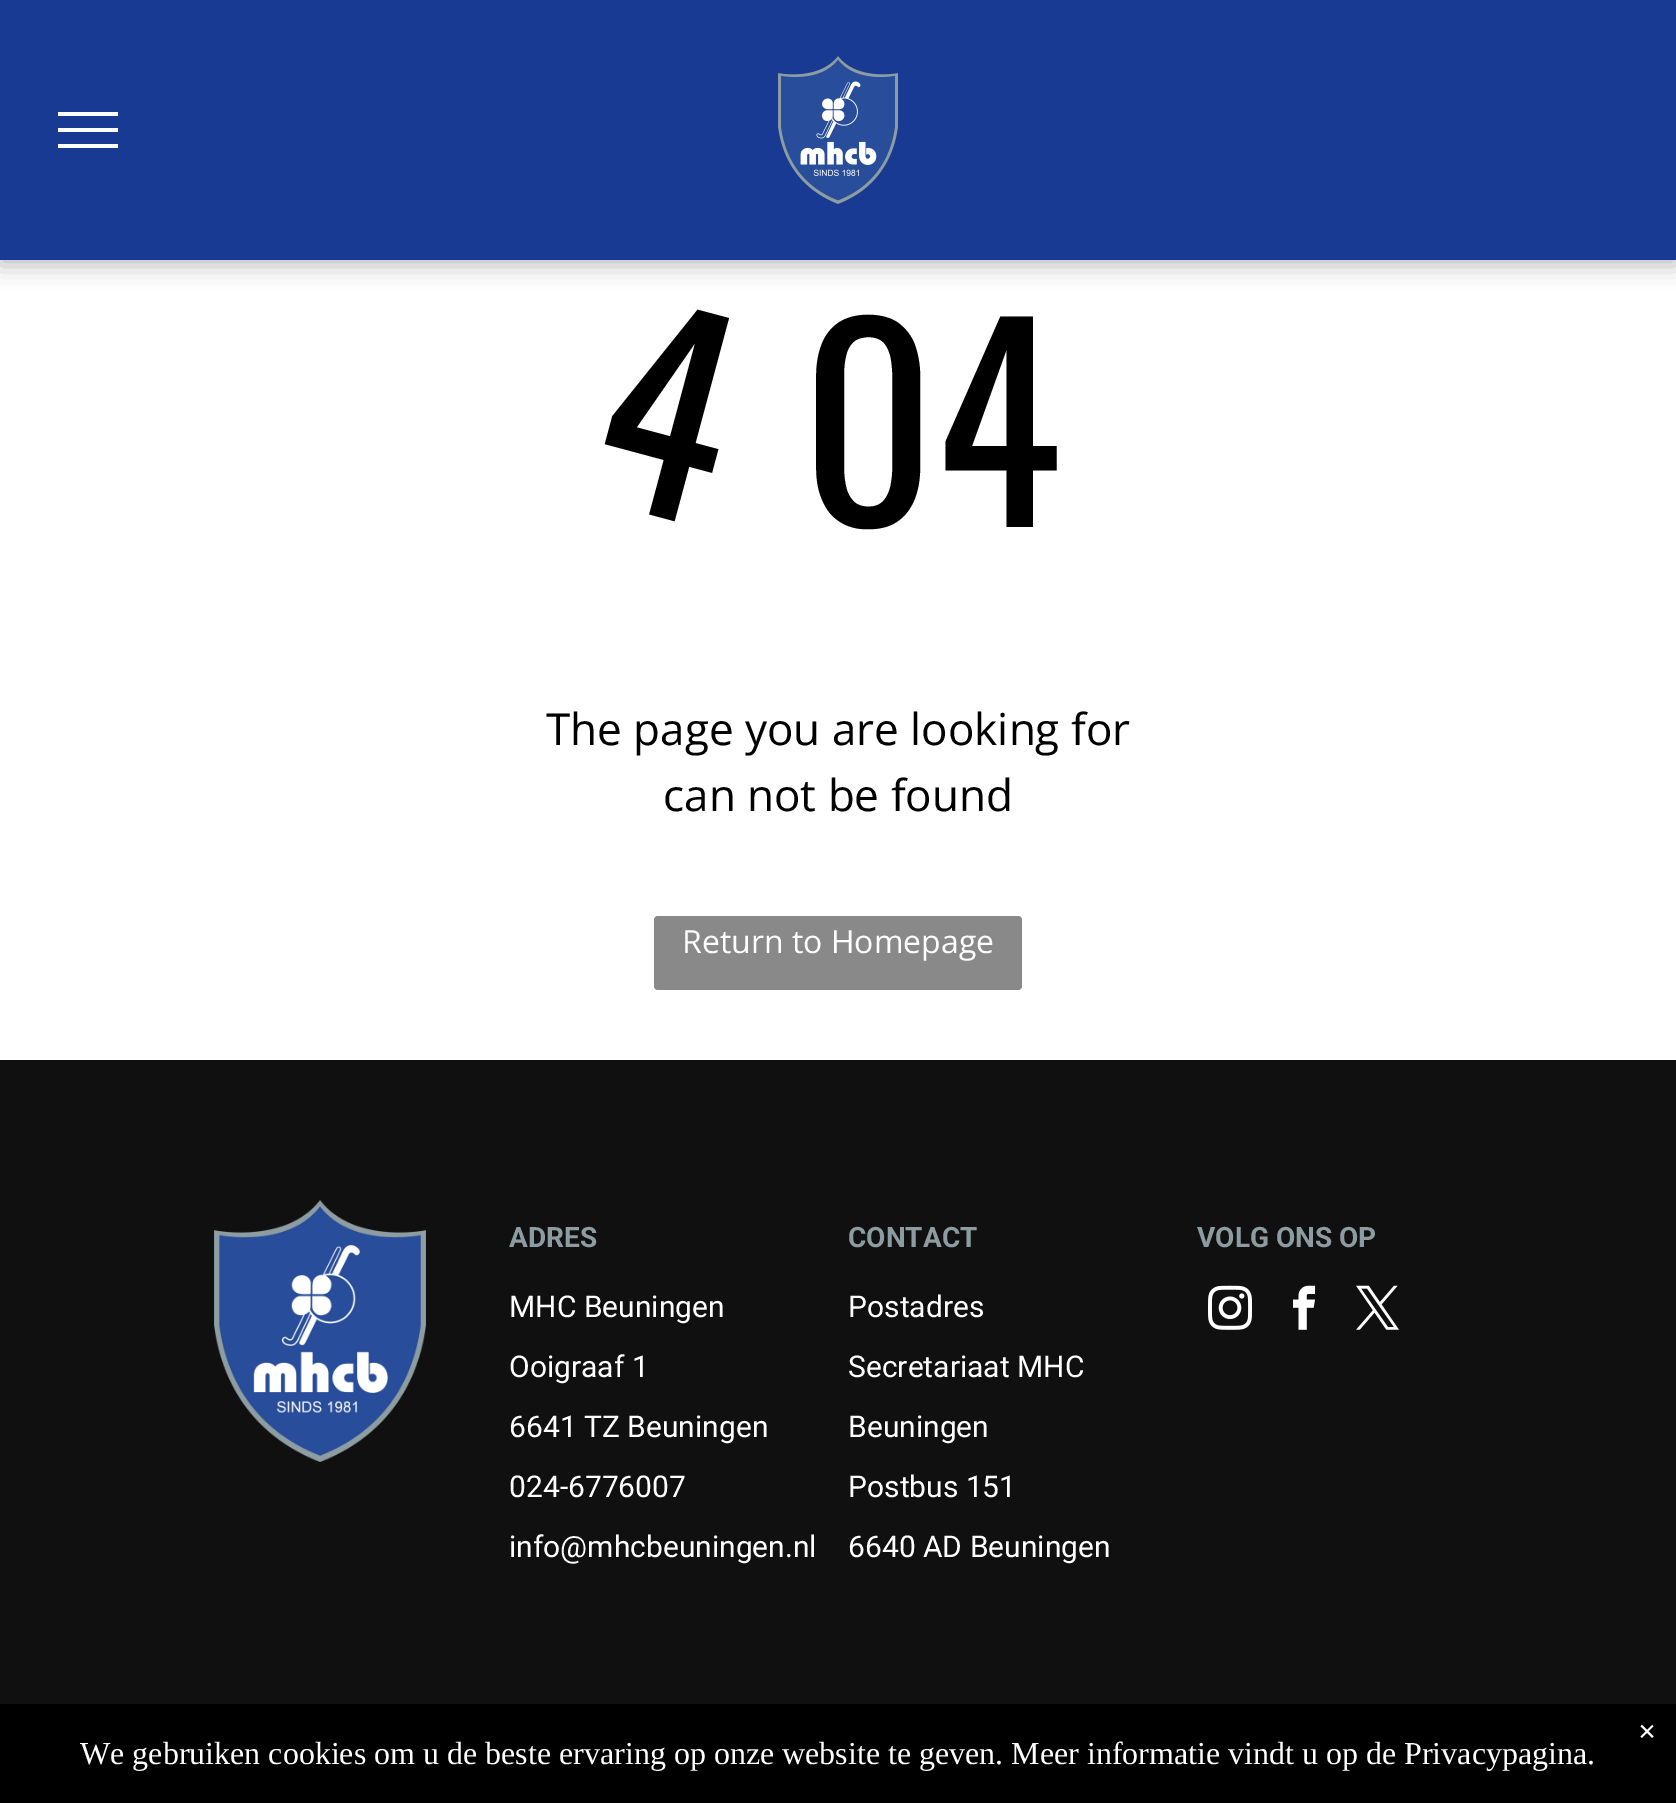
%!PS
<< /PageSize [1676 1803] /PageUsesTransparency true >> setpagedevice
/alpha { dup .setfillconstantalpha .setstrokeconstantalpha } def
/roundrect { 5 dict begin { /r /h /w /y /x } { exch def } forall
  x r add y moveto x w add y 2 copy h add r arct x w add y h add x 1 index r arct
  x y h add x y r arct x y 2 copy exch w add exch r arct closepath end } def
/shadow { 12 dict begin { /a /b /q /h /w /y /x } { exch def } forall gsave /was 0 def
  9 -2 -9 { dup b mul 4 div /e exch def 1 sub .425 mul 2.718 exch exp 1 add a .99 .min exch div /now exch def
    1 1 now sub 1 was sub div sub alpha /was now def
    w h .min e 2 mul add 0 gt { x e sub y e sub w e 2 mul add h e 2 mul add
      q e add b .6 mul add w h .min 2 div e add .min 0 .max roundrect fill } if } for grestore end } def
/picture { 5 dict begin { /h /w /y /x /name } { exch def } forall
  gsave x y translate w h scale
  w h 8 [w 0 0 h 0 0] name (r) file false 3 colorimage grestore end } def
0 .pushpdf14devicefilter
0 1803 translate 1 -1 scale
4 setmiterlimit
1 setgray
0 0 1676 1803 rectfill
0 setgray
0 6 1676 260 0 11 0.25 shadow
0.098 0.227 0.576 setrgbcolor
0 0 1676 260 rectfill
(img1.rgb) 778 56 120 148 picture
1 setgray
58 112 60 4 rectfill
58 128 60 4 rectfill
58 144 60 4 rectfill
/Oswald-Regular [260 0 0 -260 0 0] selectfont
0 setgray
gsave 580 496 translate 15 rotate 0 0 moveto (4) show grestore
801 527 moveto (04) show
/OpenSans-Regular [44 0 0 -44 0 0] selectfont
546 745 moveto (The page you are looking for) show
663 811 moveto (can not be found) show
0.537 setgray
654 916 368 74 4 roundrect fill
/OpenSans-Regular [32 0 0 -32 0 0] selectfont
1 setgray
682 953 moveto (Return to Homepage) show
0.063 setgray
0 1060 1676 644 rectfill
(img2.rgb) 214 1200 212 262 picture
/Roboto-Bold [28 0 0 -28 0 0] selectfont
0.553 0.612 0.627 setrgbcolor
509 1247 moveto (ADRES) show
/Roboto-Regular [30 0 0 -30 0 0] selectfont
1 setgray
509 1317 moveto (MHC Beuningen) show
509 1377 moveto (Ooigraaf 1) show
509 1437 moveto (6641 TZ Beuningen) show
509 1497 moveto (024-6776007) show
509 1557 moveto (info@mhcbeuningen.nl) show
/Roboto-Bold [28 0 0 -28 0 0] selectfont
0.553 0.612 0.627 setrgbcolor
848 1247 moveto (CONTACT) show
/Roboto-Regular [30 0 0 -30 0 0] selectfont
1 setgray
848 1317 moveto (Postadres) show
848 1377 moveto (Secretariaat MHC) show
848 1437 moveto (Beuningen) show
848 1497 moveto (Postbus 151) show
848 1557 moveto (6640 AD Beuningen) show
/Roboto-Bold [28 0 0 -28 0 0] selectfont
0.553 0.612 0.627 setrgbcolor
1197 1247 moveto (VOLG ONS OP) show
(img3.rgb) 1208 1285 44 45 picture
(img4.rgb) 1293 1285 23 45 picture
(img5.rgb) 1356 1285 43 45 picture
0 setgray
0 1704 1676 99 rectfill
/LiberationSerif-Bold [32 0 0 -32 0 0] selectfont
1 setgray
1638 1742 moveto (×) show
/LiberationSerif-Regular [32 0 0 -32 0 0] selectfont
80 1764 moveto (We gebruiken cookies om u de beste ervaring op onze website te geven. Meer informatie vindt u op de Privacypagina.) show
.poppdf14devicefilter showpage
